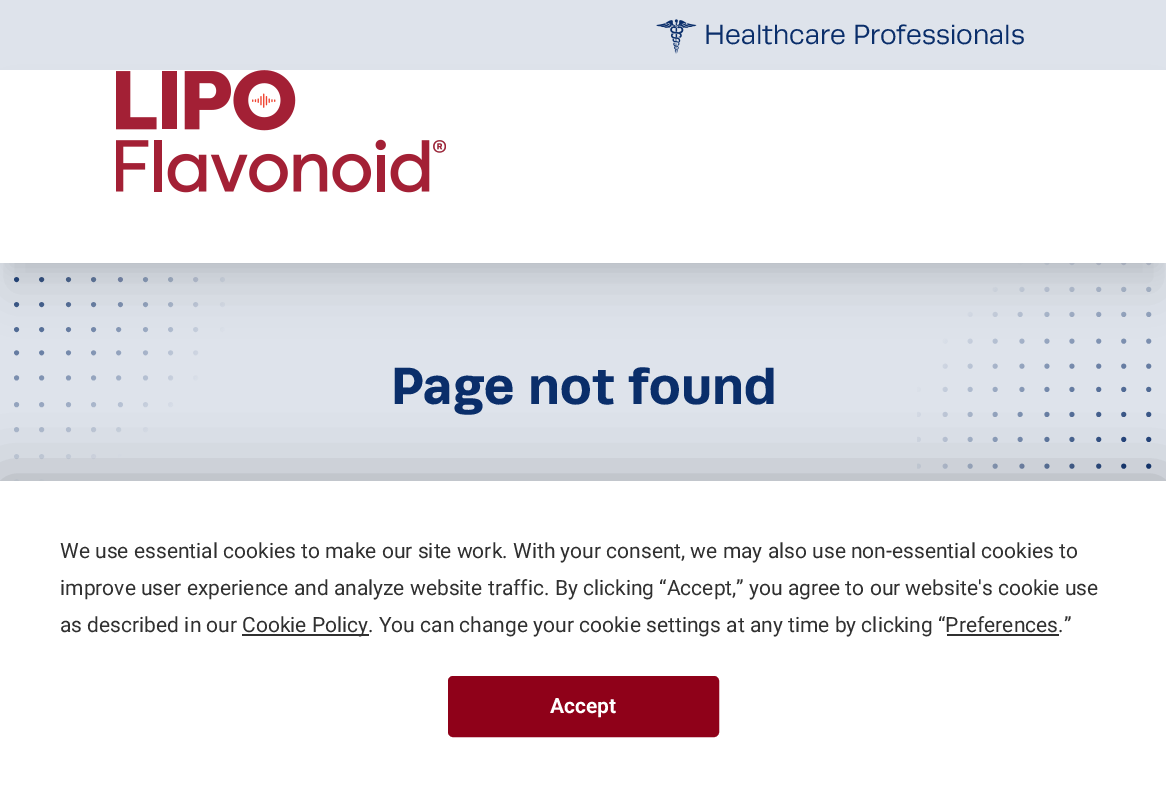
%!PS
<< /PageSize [1166 789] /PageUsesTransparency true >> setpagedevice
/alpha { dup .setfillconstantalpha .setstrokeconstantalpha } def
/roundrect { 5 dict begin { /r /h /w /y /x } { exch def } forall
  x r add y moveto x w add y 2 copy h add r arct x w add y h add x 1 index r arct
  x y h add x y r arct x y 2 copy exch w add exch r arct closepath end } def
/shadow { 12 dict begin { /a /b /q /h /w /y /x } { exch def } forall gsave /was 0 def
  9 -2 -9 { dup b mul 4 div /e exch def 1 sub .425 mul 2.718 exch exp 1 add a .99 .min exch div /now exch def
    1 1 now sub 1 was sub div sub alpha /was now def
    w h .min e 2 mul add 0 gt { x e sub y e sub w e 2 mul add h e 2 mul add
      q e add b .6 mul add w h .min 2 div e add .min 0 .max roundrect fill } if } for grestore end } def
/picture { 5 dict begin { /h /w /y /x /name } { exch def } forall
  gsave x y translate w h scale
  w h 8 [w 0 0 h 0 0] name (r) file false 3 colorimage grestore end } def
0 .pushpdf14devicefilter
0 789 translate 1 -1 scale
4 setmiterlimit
1 setgray
0 0 1166 789 rectfill
0.871 0.89 0.922 setrgbcolor
0 0 1166 70 rectfill
(img1.rgb) 656 19 41 35 picture
/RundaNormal-Regular [28 0 0 -28 0 0] selectfont
0.039 0.18 0.416 setrgbcolor
704 44 moveto (Healthcare Professionals) show
0.871 0.89 0.922 setrgbcolor
0 263 1166 218 rectfill
(img3.rgb) 14 277 211 204 picture
(img4.rgb) 917 263 235 206 picture
gsave
newpath 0 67 moveto 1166 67 lineto 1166 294 lineto 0 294 lineto closepath 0 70 moveto 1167 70 lineto 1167 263 lineto 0 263 lineto closepath eoclip newpath
0 setgray
11 95 1146 171 0 9 0.1 shadow
grestore
gsave
newpath 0 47 moveto 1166 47 lineto 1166 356 lineto 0 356 lineto closepath 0 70 moveto 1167 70 lineto 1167 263 lineto 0 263 lineto closepath eoclip newpath
0 setgray
9 114 1150 175 0 22 0.1 shadow
grestore
(img2.rgb) 116 70 330 123 picture
/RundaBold-Bold [52.5 0 0 -52.5 0 0] selectfont
0.039 0.18 0.416 setrgbcolor
391 404 moveto (Page not found) show
0 setgray
0 481 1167 308 0 30.5 0.25 shadow
1 setgray
0 481 1166 308 rectfill
/Roboto-Regular [21 0 0 -21 0 0] selectfont
0.188 setgray
60 558 moveto (We use essential cookies to make our site work. With your consent, we may also use non-essential cookies to) show
60 595 moveto (improve user experience and analyze website traffic. By clicking “Accept,” you agree to our website's cookie use) show
60 632 moveto (as described in our) show
242 634 127 2 rectfill
242 632 moveto (Cookie Policy. You can change your cookie settings at any time by clicking “Preferences.”) show
947 634 112 2 rectfill
0.561 0.004 0.098 setrgbcolor
449 677 269 59 4 roundrect gsave fill grestore
2 setlinewidth
stroke
/Roboto-Bold [21 0 0 -21 0 0] selectfont
1 setgray
550 713 moveto (Accept) show
.poppdf14devicefilter showpage
